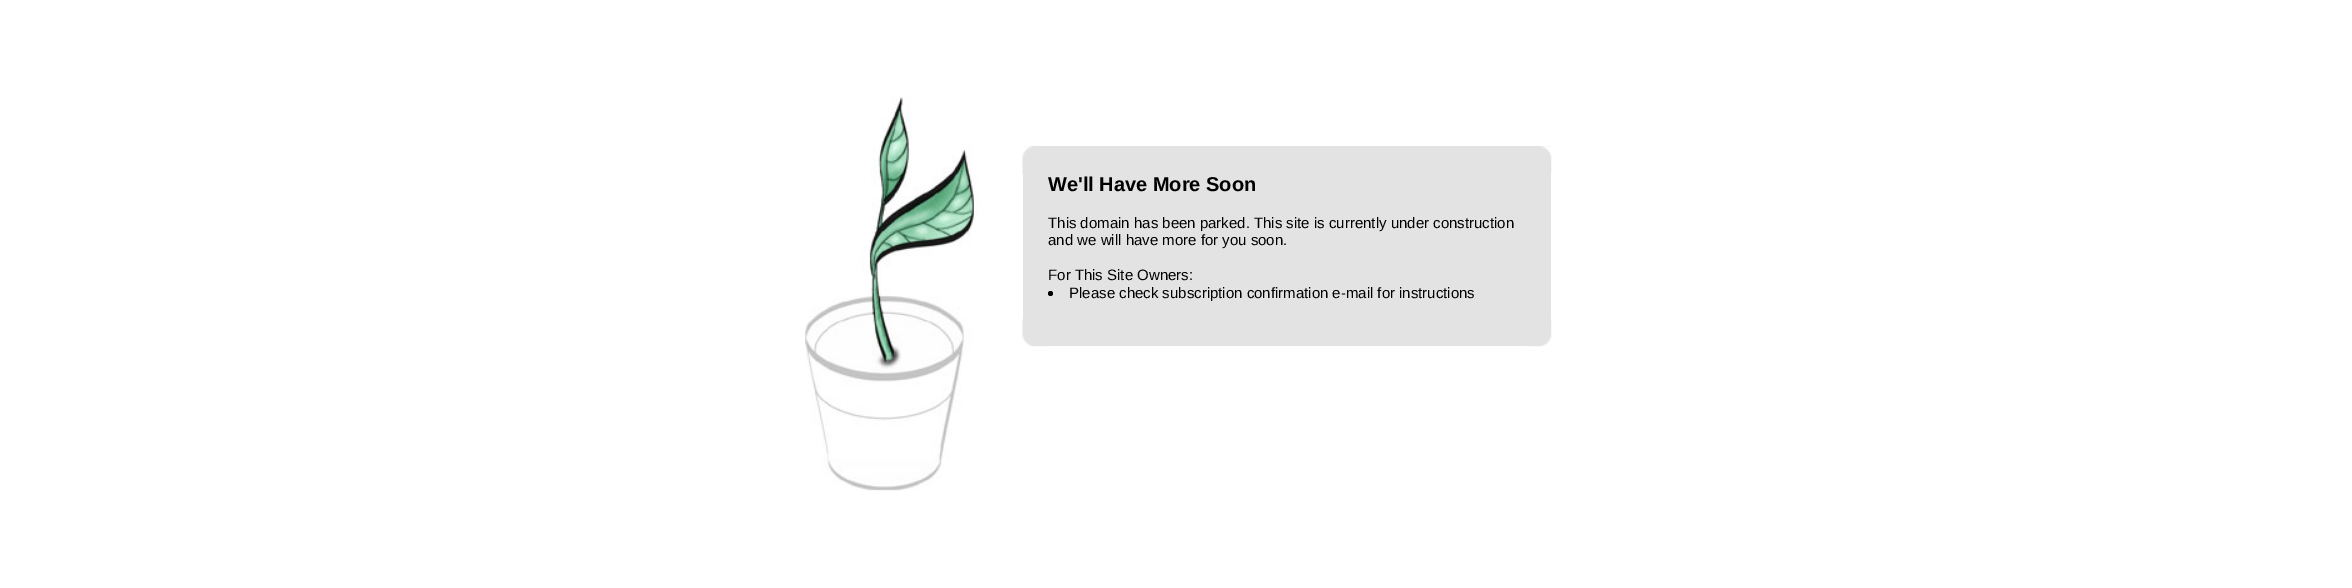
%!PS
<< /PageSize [2352 588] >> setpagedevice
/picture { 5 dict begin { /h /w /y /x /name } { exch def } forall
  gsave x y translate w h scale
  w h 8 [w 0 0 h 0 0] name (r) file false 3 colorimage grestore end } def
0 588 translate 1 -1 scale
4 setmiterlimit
1 setgray
0 0 2352 588 rectfill
(img1.rgb) 805 97 174 394 picture
0.89 setgray
1023 146 528 200 rectfill
(img2.rgb) 1022 146 11 28 picture
(img3.rgb) 1541 146 11 28 picture
/LiberationSans-Bold [20 0 0 -20 0 0] selectfont
0 setgray
1048 191 moveto (We'll Have More Soon) show
/LiberationSans-Regular [15 0 0 -15 0 0] selectfont
1048 228 moveto (This domain has been parked. This site is currently under construction) show
1048 245 moveto (and we will have more for you soon.) show
1048 280 moveto (For This Site Owners:) show
newpath 1050.5 293.5 2.5 0 360 arc closepath fill
1069 298 moveto (Please check subscription confirmation e-mail for instructions) show
(img4.rgb) 1022 319 25 28 picture
(img5.rgb) 1526 319 26 28 picture
showpage
